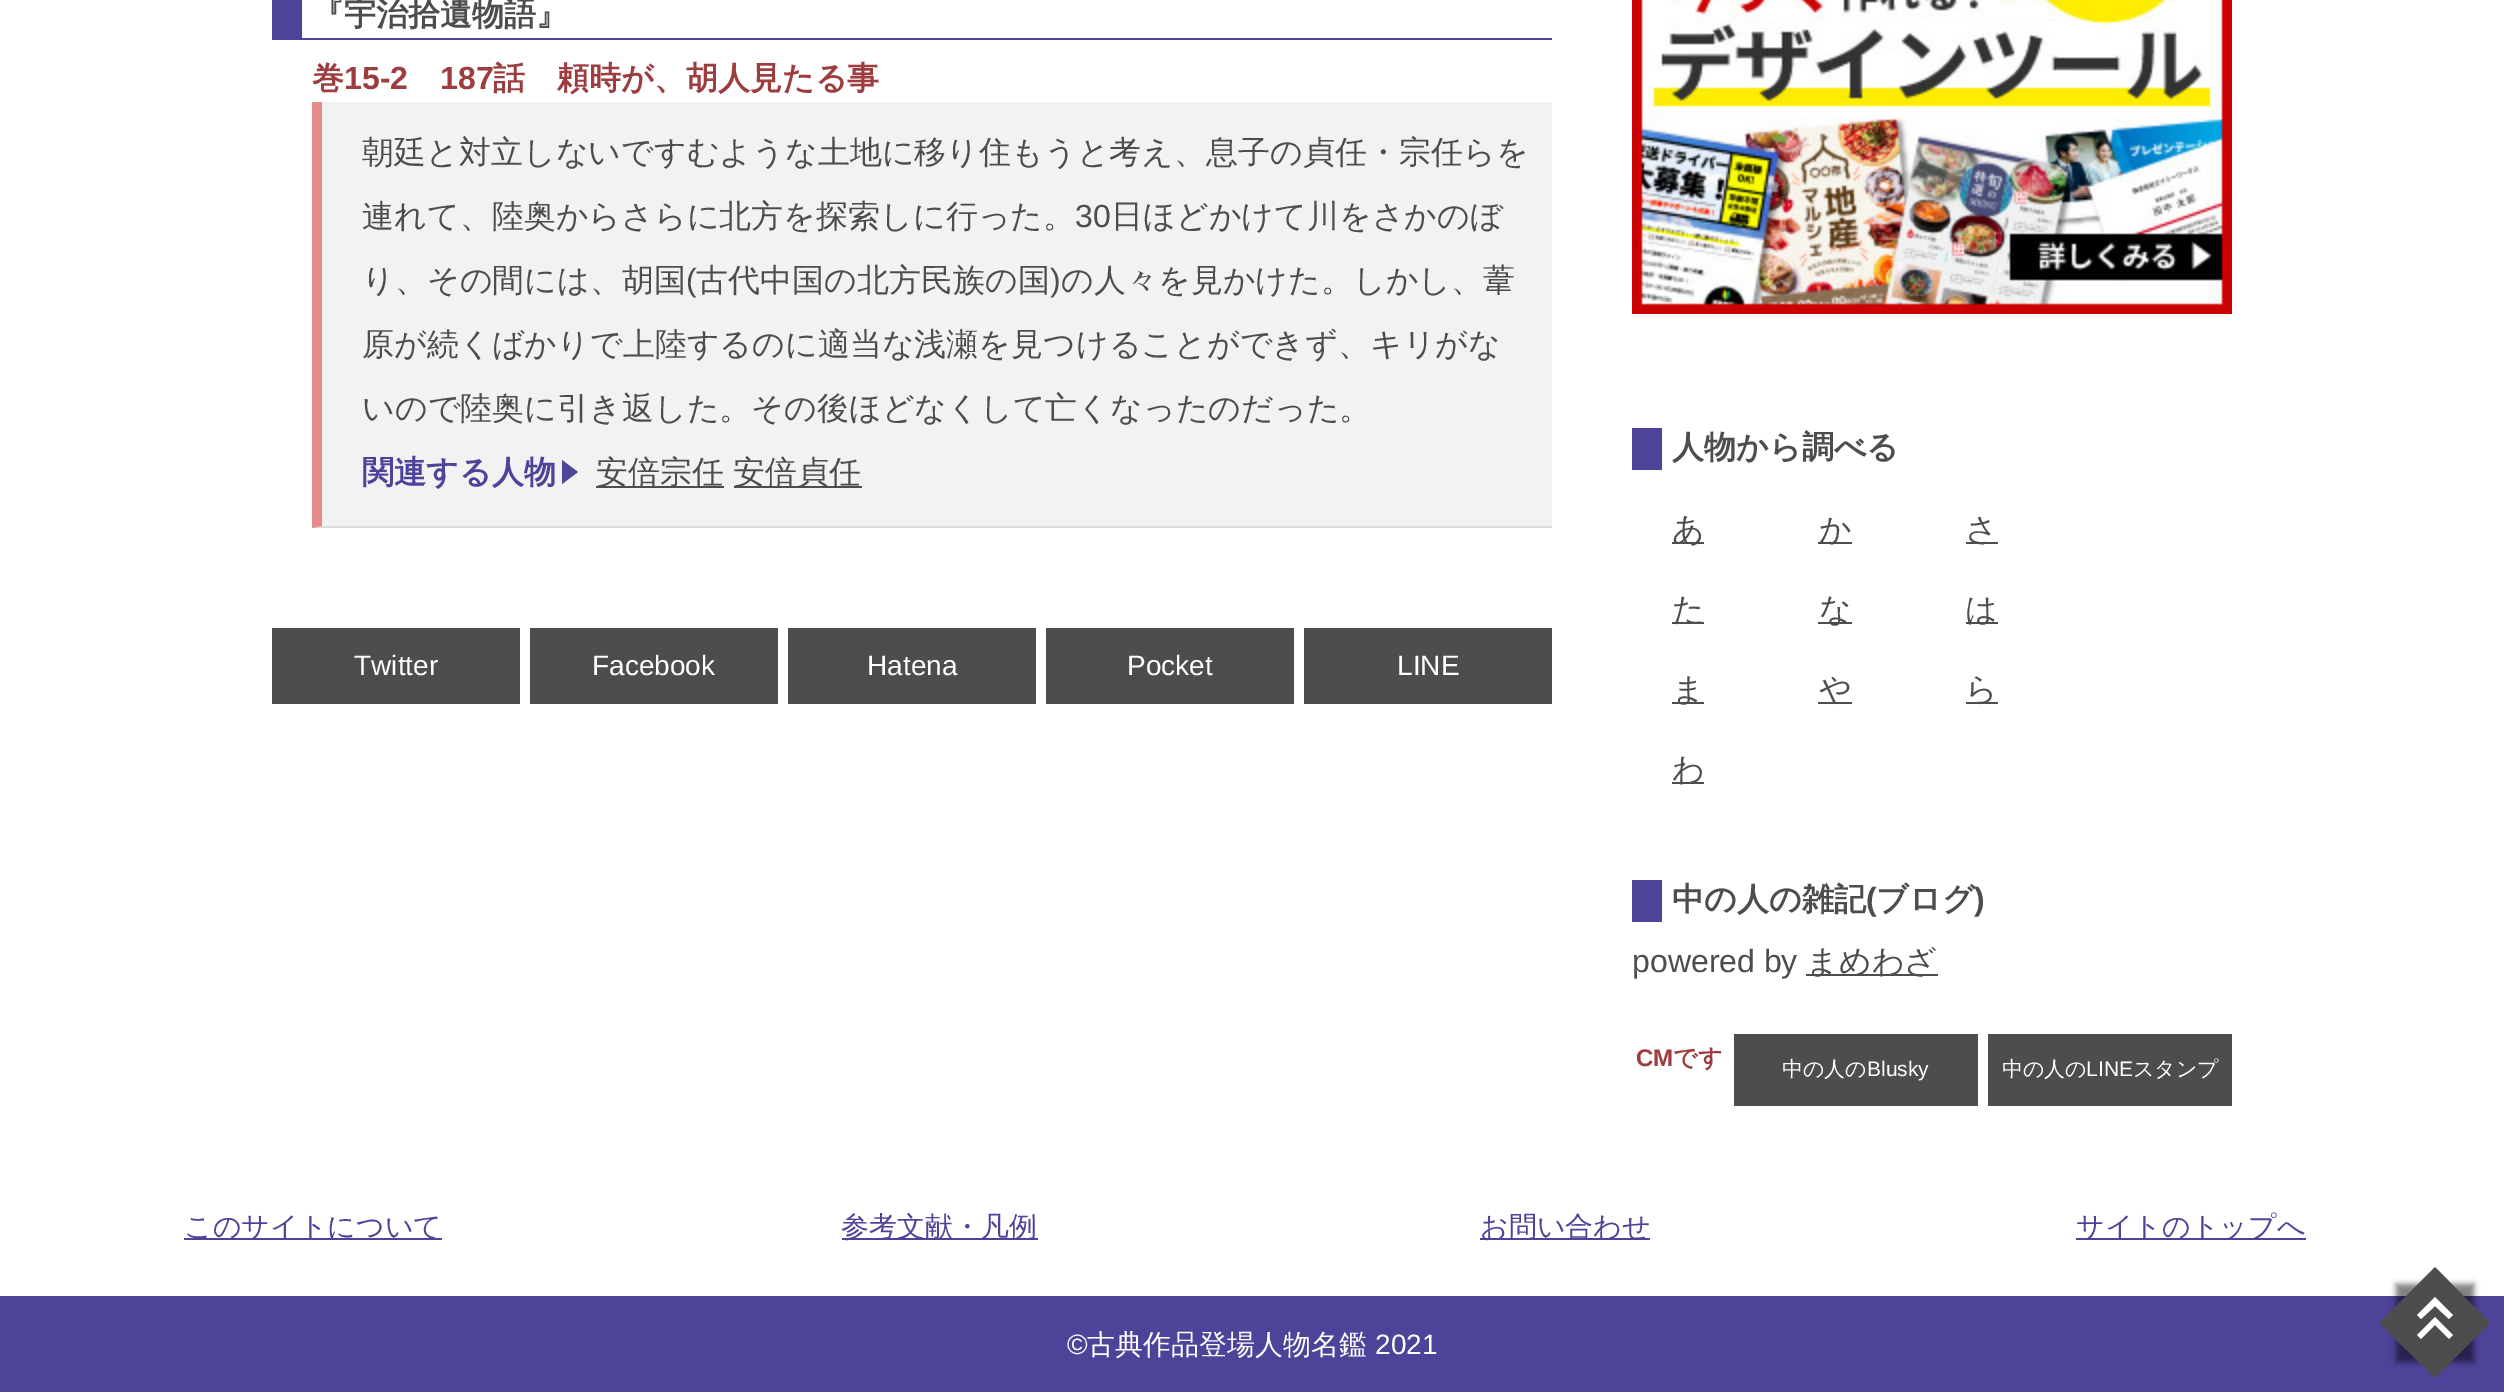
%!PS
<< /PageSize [2504 1392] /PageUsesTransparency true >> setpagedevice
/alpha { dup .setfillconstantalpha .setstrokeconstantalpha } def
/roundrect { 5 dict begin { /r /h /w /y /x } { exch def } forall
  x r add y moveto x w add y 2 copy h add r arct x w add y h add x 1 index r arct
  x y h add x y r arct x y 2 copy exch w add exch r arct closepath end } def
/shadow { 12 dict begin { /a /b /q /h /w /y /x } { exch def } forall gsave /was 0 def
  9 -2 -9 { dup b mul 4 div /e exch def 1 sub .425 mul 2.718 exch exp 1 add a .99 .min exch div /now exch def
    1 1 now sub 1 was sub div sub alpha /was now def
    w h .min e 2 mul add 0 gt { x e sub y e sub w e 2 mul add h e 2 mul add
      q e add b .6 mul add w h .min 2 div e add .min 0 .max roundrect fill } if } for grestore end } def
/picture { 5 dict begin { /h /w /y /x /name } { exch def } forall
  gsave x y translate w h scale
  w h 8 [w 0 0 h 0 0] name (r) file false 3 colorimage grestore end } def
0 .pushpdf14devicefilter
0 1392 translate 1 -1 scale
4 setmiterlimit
1 setgray
0 0 2504 1392 rectfill
0.302 0.263 0.596 setrgbcolor
302 38 1250 2 rectfill
272 0 30 40 rectfill
/WenQuanYiZenHei-Bold [32 0 0 -32 0 0] selectfont
0.302 setgray
312 25 moveto (『宇治拾遺物語』) show
0.62 0.239 0.247 setrgbcolor
312 89 moveto (巻) show
/LiberationSans-Bold [32 0 0 -32 0 0] selectfont
344 89 moveto (15-2) show
440 89 moveto (187) show
/WenQuanYiZenHei-Bold [32 0 0 -32 0 0] selectfont
493 89 moveto (話　頼時が、胡人見たる事) show
0.949 setgray
312 102 1240 426 rectfill
0.863 setgray
newpath 1552 528 moveto 312 528 lineto 322 526 lineto 1552 526 lineto closepath fill
0.902 0.541 0.557 setrgbcolor
newpath 312 528 moveto 312 102 lineto 322 102 lineto 322 526 lineto closepath fill
/WenQuanYiZenHei-Medium [32 0 0 -32 0 0] selectfont
0.302 setgray
362 163 moveto (朝廷と対立しないですむような土地に移り住もうと考え、息子の貞任・宗任らを) show
362 227 moveto (連れて、陸奥からさらに北方を探索しに行った。) show
/LiberationSans-Regular [32 0 0 -32 0 0] selectfont
1075 227 moveto (30) show
/WenQuanYiZenHei-Medium [32 0 0 -32 0 0] selectfont
1111 227 moveto (日ほどかけて川をさかのぼ) show
362 291 moveto (り、その間には、胡国) show
/LiberationSans-Regular [32 0 0 -32 0 0] selectfont
686 291 moveto (\() show
/WenQuanYiZenHei-Medium [32 0 0 -32 0 0] selectfont
696 291 moveto (古代中国の北方民族の国) show
/LiberationSans-Regular [32 0 0 -32 0 0] selectfont
1050 291 moveto (\)) show
/WenQuanYiZenHei-Medium [32 0 0 -32 0 0] selectfont
1061 291 moveto (の人々を見かけた。しかし、葦) show
362 355 moveto (原が続くばかりで上陸するのに適当な浅瀬を見つけることができず、キリがな) show
362 419 moveto (いので陸奥に引き返した。その後ほどなくして亡くなったのだった。) show
/WenQuanYiZenHei-Bold [32 0 0 -32 0 0] selectfont
0.302 0.263 0.596 setrgbcolor
362 483 moveto (関連する人物) show
newpath 562 484 moveto 562 460 lineto 578 472 lineto closepath fill
0.302 setgray
596 486 128 2 rectfill
/WenQuanYiZenHei-Medium [32 0 0 -32 0 0] selectfont
596 483 moveto (安倍宗任) show
734 486 128 2 rectfill
733 483 moveto (安倍貞任) show
272 628 248 76 rectfill
/LiberationSans-Regular [28 0 0 -28 0 0] selectfont
1 setgray
354 675 moveto (Twitter) show
0.302 setgray
530 628 248 76 rectfill
1 setgray
592 675 moveto (Facebook) show
0.302 setgray
788 628 248 76 rectfill
1 setgray
867 675 moveto (Hatena) show
0.302 setgray
1046 628 248 76 rectfill
1 setgray
1127 675 moveto (Pocket) show
0.302 setgray
1304 628 248 76 rectfill
1 setgray
1397 675 moveto (LINE) show
(img1.rgb) 1632 0 600 314 picture
0.302 0.263 0.596 setrgbcolor
1632 428 30 42 rectfill
/WenQuanYiZenHei-Bold [32 0 0 -32 0 0] selectfont
0.302 setgray
1672 458 moveto (人物から調べる) show
1672 542 32 2 rectfill
/WenQuanYiZenHei-Medium [32 0 0 -32 0 0] selectfont
1672 540 moveto (あ) show
1818 542 34 2 rectfill
1819 540 moveto (か) show
1966 542 32 2 rectfill
1965 540 moveto (さ) show
1672 622 32 2 rectfill
1672 620 moveto (た) show
1818 622 34 2 rectfill
1819 620 moveto (な) show
1966 622 32 2 rectfill
1965 620 moveto (は) show
1672 702 32 2 rectfill
1672 700 moveto (ま) show
1818 702 34 2 rectfill
1819 700 moveto (や) show
1966 702 32 2 rectfill
1965 700 moveto (ら) show
1672 782 32 2 rectfill
1672 780 moveto (わ) show
0.302 0.263 0.596 setrgbcolor
1632 880 30 42 rectfill
/WenQuanYiZenHei-Bold [32 0 0 -32 0 0] selectfont
0.302 setgray
1672 910 moveto (中の人の雑記) show
/LiberationSans-Bold [32 0 0 -32 0 0] selectfont
1866 910 moveto (\() show
/WenQuanYiZenHei-Bold [32 0 0 -32 0 0] selectfont
1876 910 moveto (ブログ) show
/LiberationSans-Bold [32 0 0 -32 0 0] selectfont
1974 910 moveto (\)) show
/LiberationSans-Regular [32 0 0 -32 0 0] selectfont
1632 972 moveto (powered by) show
1806 974 132 2 rectfill
/WenQuanYiZenHei-Medium [32 0 0 -32 0 0] selectfont
1806 972 moveto (まめわざ) show
/LiberationSans-Bold [24 0 0 -24 0 0] selectfont
0.62 0.239 0.247 setrgbcolor
1636 1066 moveto (CM) show
/WenQuanYiZenHei-Bold [24 0 0 -24 0 0] selectfont
1673 1066 moveto (です) show
0.302 setgray
1734 1034 244 72 rectfill
/WenQuanYiZenHei-Medium [21 0 0 -21 0 0] selectfont
1 setgray
1782 1076 moveto (中の人の) show
/LiberationSans-Regular [21 0 0 -21 0 0] selectfont
1867 1076 moveto (Blusky) show
0.302 setgray
1988 1034 244 72 rectfill
/WenQuanYiZenHei-Medium [21 0 0 -21 0 0] selectfont
1 setgray
2002 1076 moveto (中の人の) show
/LiberationSans-Regular [21 0 0 -21 0 0] selectfont
2086 1076 moveto (LINE) show
/WenQuanYiZenHei-Medium [21 0 0 -21 0 0] selectfont
2133 1076 moveto (スタンプ) show
0.302 0.263 0.596 setrgbcolor
184 1238 258 2 rectfill
/WenQuanYiZenHei-Medium [28 0 0 -28 0 0] selectfont
184 1236 moveto (このサイトについて) show
842 1238 196 2 rectfill
841 1236 moveto (参考文献・凡例) show
1480 1238 170 2 rectfill
1480 1236 moveto (お問い合わせ) show
2076 1238 230 2 rectfill
2076 1236 moveto (サイトのトップへ) show
0 1296 2504 96 rectfill
/LiberationSans-Regular [28 0 0 -28 0 0] selectfont
1 setgray
1067 1354 moveto (©) show
/WenQuanYiZenHei-Medium [28 0 0 -28 0 0] selectfont
1087 1354 moveto (古典作品登場人物名鑑) show
/LiberationSans-Regular [28 0 0 -28 0 0] selectfont
1375 1354 moveto (2021) show
0 setgray
2396 1284 78 78 0 3 0.5 shadow
0.302 setgray
newpath 2435 1267 moveto 2490 1323 lineto 2435 1378 lineto 2379 1323 lineto closepath fill
1 setgray
newpath 2417 1335 moveto 2421 1339 lineto 2435 1325 lineto 2449 1339 lineto 2453 1335 lineto 2435 1317 lineto closepath 2417 1315 moveto 2421 1319 lineto 2435 1306 lineto 2449 1319 lineto 2453 1315 lineto 2435 1297 lineto closepath fill
.poppdf14devicefilter showpage
